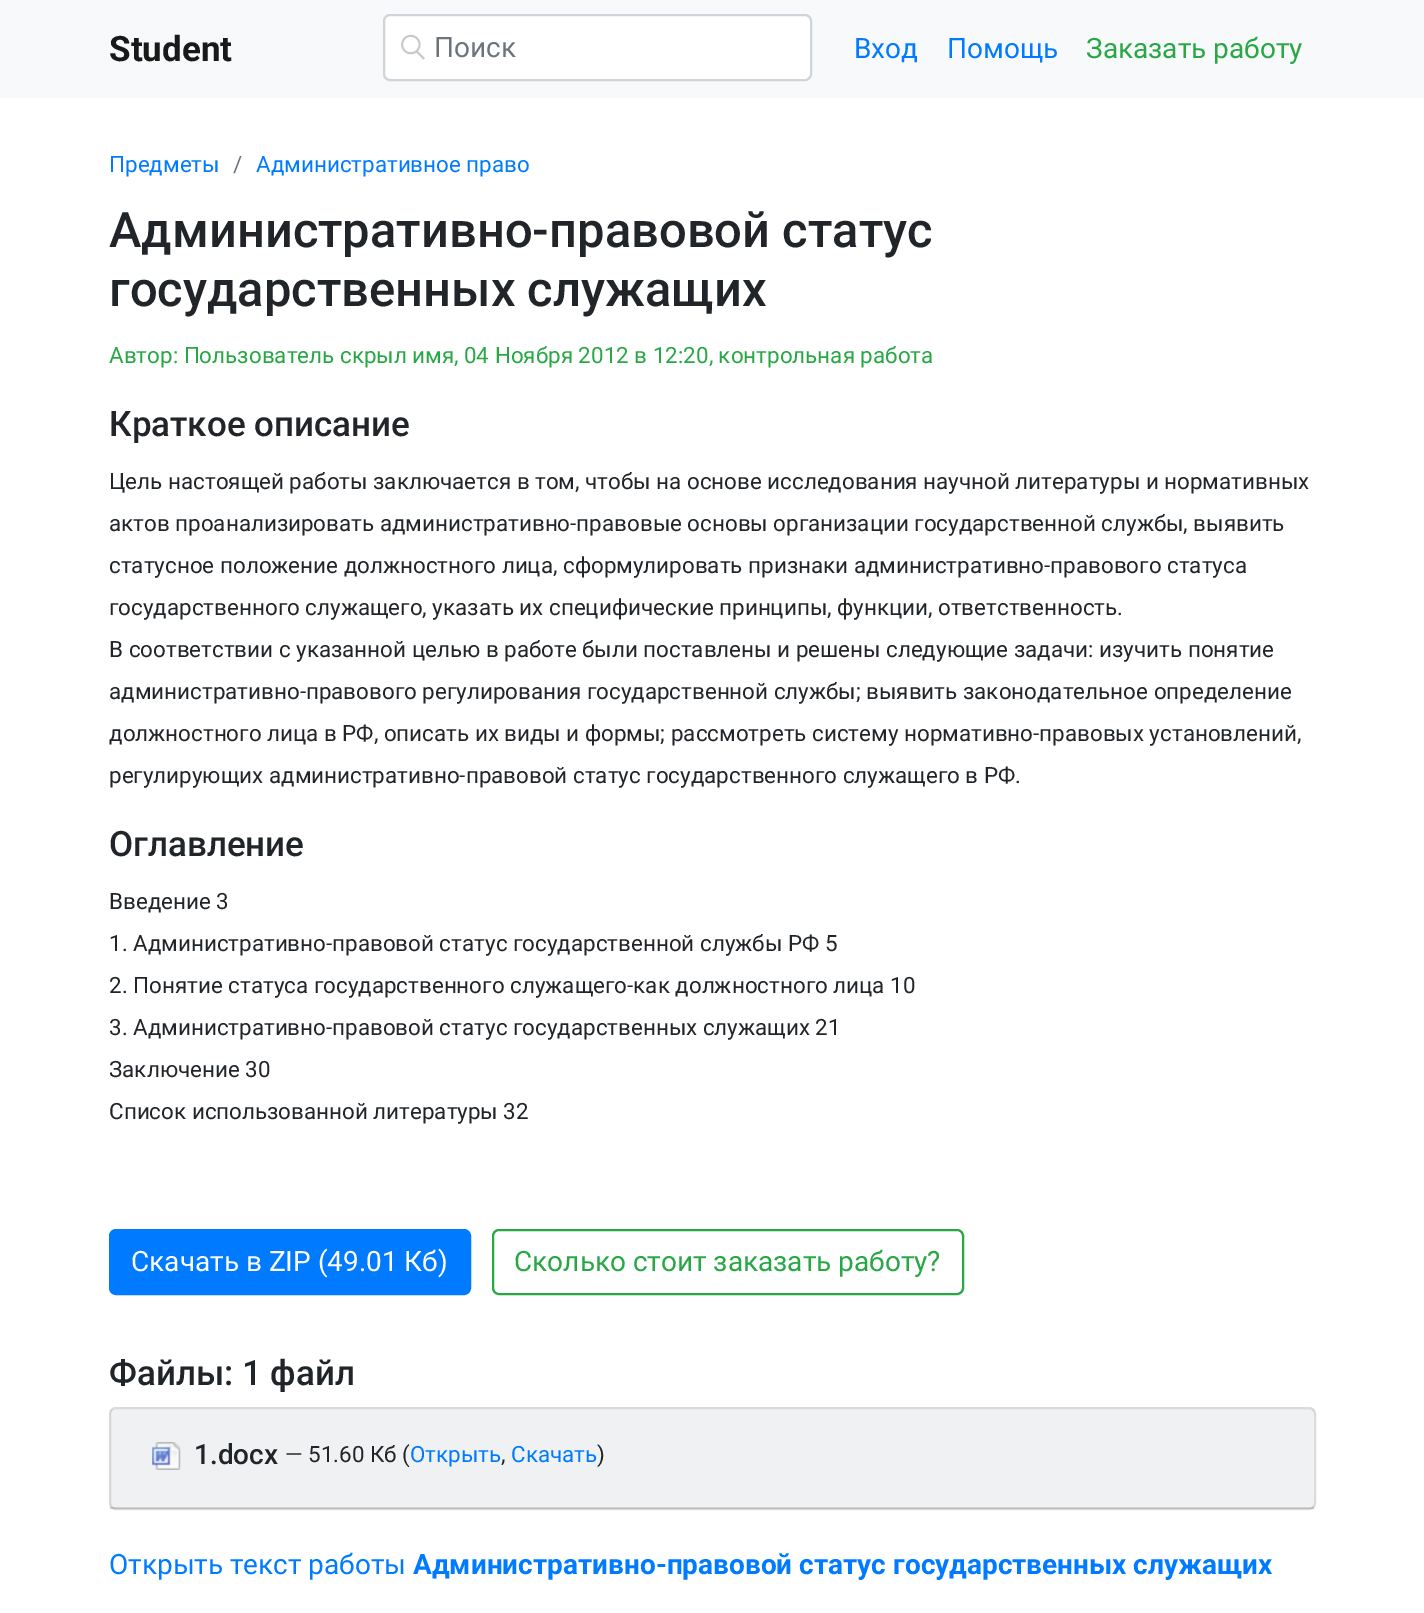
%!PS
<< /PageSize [1424 1613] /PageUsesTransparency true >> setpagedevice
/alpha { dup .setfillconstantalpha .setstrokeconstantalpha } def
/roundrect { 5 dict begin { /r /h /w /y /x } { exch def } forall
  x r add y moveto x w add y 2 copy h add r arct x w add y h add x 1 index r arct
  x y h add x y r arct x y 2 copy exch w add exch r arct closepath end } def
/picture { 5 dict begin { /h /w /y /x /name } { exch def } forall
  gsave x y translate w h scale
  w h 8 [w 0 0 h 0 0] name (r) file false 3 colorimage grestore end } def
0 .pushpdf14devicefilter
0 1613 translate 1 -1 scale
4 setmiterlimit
1 setgray
0 0 1424 1613 rectfill
0.973 0.976 0.98 setrgbcolor
0 0 1424 98 rectfill
/Roboto-Bold [35 0 0 -35 0 0] selectfont
0.098 setgray
109 61 moveto (Student) show
1 setgray
385 16 425 63 5 roundrect fill
(img1.rgb) 401 34 24 26 picture
0.808 0.831 0.855 setrgbcolor
2 setlinewidth
384 15 427 65 6 roundrect stroke
/Roboto-Regular [28 0 0 -28 0 0] selectfont
0.424 0.459 0.49 setrgbcolor
434 57 moveto (Поиск) show
0 0.482 1 setrgbcolor
854 58 moveto (Вход) show
947 58 moveto (Помощь) show
0.157 0.655 0.271 setrgbcolor
1086 58 moveto (Заказать работу) show
/Roboto-Regular [22.4 0 0 -22.4 0 0] selectfont
0 0.482 1 setrgbcolor
109 172 moveto (Предметы) show
0.424 0.459 0.49 setrgbcolor
233 172 moveto (/) show
0 0.482 1 setrgbcolor
256 172 moveto (Административное право) show
/Roboto-Medium [49 0 0 -49 0 0] selectfont
0.129 0.145 0.161 setrgbcolor
109 247 moveto (Административно-правовой статус) show
109 306 moveto (государственных служащих) show
/Roboto-Regular [22.4 0 0 -22.4 0 0] selectfont
0.157 0.655 0.271 setrgbcolor
109 363 moveto (Автор: Пользователь скрыл имя, 04 Ноября 2012 в 12:20, контрольная работа) show
/Roboto-Medium [35 0 0 -35 0 0] selectfont
0.129 0.145 0.161 setrgbcolor
109 436 moveto (Краткое описание) show
/Roboto-Regular [22.4 0 0 -22.4 0 0] selectfont
109 489 moveto (Цель настоящей работы заключается в том, чтобы на основе исследования научной литературы и нормативных) show
109 531 moveto (актов проанализировать административно-правовые основы организации государственной службы, выявить) show
109 573 moveto (статусное положение должностного лица, сформулировать признаки административно-правового статуса) show
109 615 moveto (государственного служащего, указать их специфические принципы, функции, ответственность.) show
109 657 moveto (В соответствии с указанной целью в работе были поставлены и решены следующие задачи: изучить понятие) show
109 699 moveto (административно-правового регулирования государственной службы; выявить законодательное определение) show
109 741 moveto (должностного лица в РФ, описать их виды и формы; рассмотреть систему нормативно-правовых установлений,) show
109 783 moveto (регулирующих административно-правовой статус государственного служащего в РФ.) show
/Roboto-Medium [35 0 0 -35 0 0] selectfont
109 856 moveto (Оглавление) show
/Roboto-Regular [22.4 0 0 -22.4 0 0] selectfont
109 909 moveto (Введение 3) show
109 951 moveto (1. Административно-правовой статус государственной службы РФ 5) show
109 993 moveto (2. Понятие статуса государственного служащего-как должностного лица 10) show
109 1035 moveto (3. Административно-правовой статус государственных служащих 21) show
109 1077 moveto (Заключение 30) show
109 1119 moveto (Список использованной литературы 32) show
0 0.482 1 setrgbcolor
110 1230 360 64 6 roundrect gsave fill grestore
stroke
/Roboto-Regular [28 0 0 -28 0 0] selectfont
1 setgray
131 1271 moveto (Скачать в ZIP \(49.01 Кб\)) show
0.157 0.655 0.271 setrgbcolor
493 1230 470 64 6 roundrect stroke
514 1271 moveto (Сколько стоит заказать работу?) show
/Roboto-Medium [35 0 0 -35 0 0] selectfont
0.129 0.145 0.161 setrgbcolor
109 1385 moveto (Файлы: 1 файл) show
0.973 0.976 0.98 setrgbcolor
109 1407 1207 103 7 roundrect fill
0.12 alpha
0 setgray
110 1408 1205 101 6 roundrect stroke
0.03 alpha
110 1409 1204 100 rectfill
0.12 alpha
110 1507 1204 2 rectfill
1 alpha
(img2.rgb) 152 1442 29 28 picture
/Roboto-Medium [28 0 0 -28 0 0] selectfont
0.129 0.145 0.161 setrgbcolor
194 1464 moveto (1.docx) show
/Roboto-Regular [22.4 0 0 -22.4 0 0] selectfont
285 1462 moveto (— 51.60 Кб \() show
0 0.482 1 setrgbcolor
410 1462 moveto (Открыть) show
0.129 0.145 0.161 setrgbcolor
501 1462 moveto (,) show
0 0.482 1 setrgbcolor
511 1462 moveto (Скачать) show
0.129 0.145 0.161 setrgbcolor
597 1462 moveto (\)) show
/Roboto-Regular [28 0 0 -28 0 0] selectfont
0 0.482 1 setrgbcolor
109 1574 moveto (Открыть текст работы) show
/Roboto-Bold [28 0 0 -28 0 0] selectfont
413 1574 moveto (Административно-правовой статус государственных служащих) show
.poppdf14devicefilter showpage
